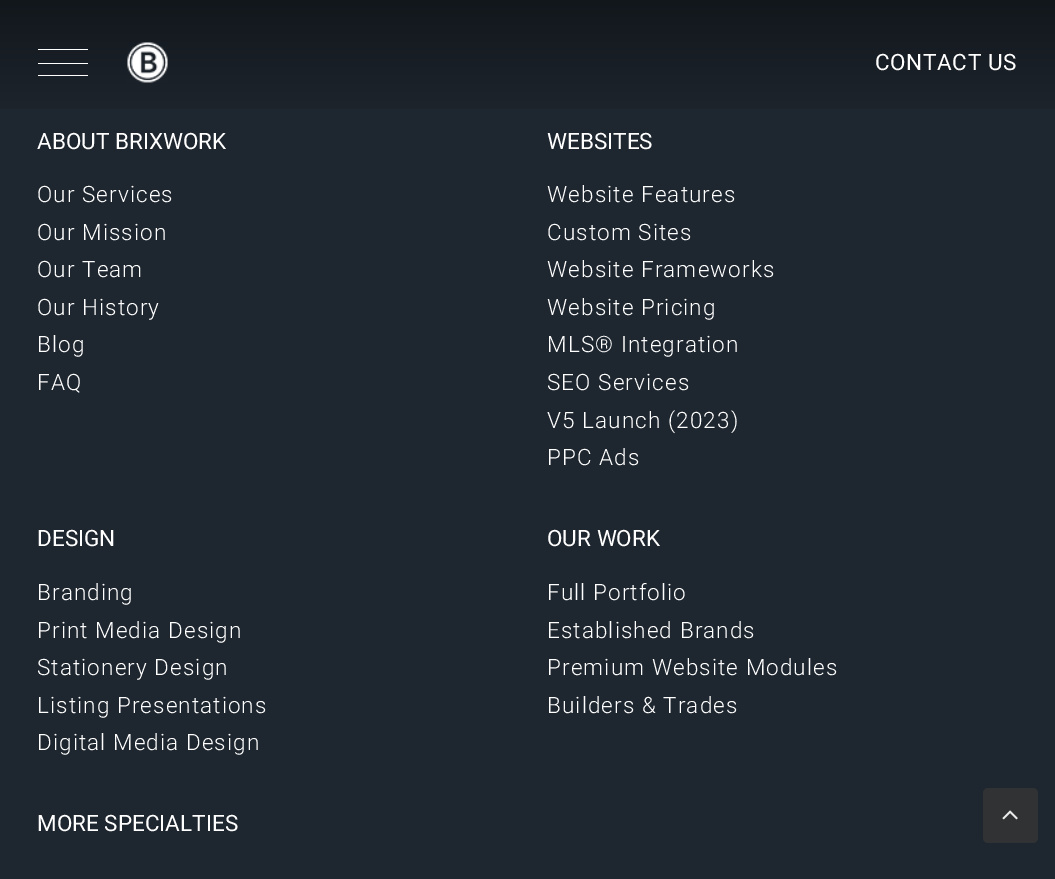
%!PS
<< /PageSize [1055 879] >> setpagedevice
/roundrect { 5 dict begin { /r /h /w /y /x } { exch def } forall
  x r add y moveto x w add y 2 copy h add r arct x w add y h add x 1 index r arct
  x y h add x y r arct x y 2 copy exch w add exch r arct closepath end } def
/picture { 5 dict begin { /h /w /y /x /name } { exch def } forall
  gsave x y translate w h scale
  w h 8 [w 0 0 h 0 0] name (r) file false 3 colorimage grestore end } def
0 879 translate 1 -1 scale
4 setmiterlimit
0.118 0.149 0.184 setrgbcolor
0 0 1055 879 rectfill
gsave newpath 0 0 moveto 1055 0 lineto 1055 109 lineto 0 109 lineto closepath clip newpath
<< /ShadingType 2 /ColorSpace /DeviceRGB /Coords [528 0 528 125] /Extend [true true] /Function << /FunctionType 2 /Domain [0 1] /C0 [0.071 0.09 0.11] /C1 [0.118 0.149 0.184] /N 1 >> >> shfill grestore
1 setgray
38 49 50 1 rectfill
38 63 50 1 rectfill
38 75 50 1 rectfill
(img1.rgb) 127 42 41 41 picture
/Roboto-Regular [22.5 0 0 -22.5 0 0] selectfont
875 70 moveto 0.6 0 (CONTACT US) ashow
37 149 moveto (ABOUT BRIXWORK) show
/Roboto-Light [22.5 0 0 -22.5 0 0] selectfont
37 202 moveto 1.1 0 (Our Services) ashow
37 240 moveto 1.1 0 (Our Mission) ashow
37 277 moveto 1.1 0 (Our Team) ashow
37 315 moveto 1.1 0 (Our History) ashow
37 352 moveto 1.1 0 (Blog) ashow
37 390 moveto 1.1 0 (FAQ) ashow
/Roboto-Regular [22.5 0 0 -22.5 0 0] selectfont
547 149 moveto (WEBSITES) show
/Roboto-Light [22.5 0 0 -22.5 0 0] selectfont
547 202 moveto 1.1 0 (Website Features) ashow
547 240 moveto 1.1 0 (Custom Sites) ashow
547 277 moveto 1.1 0 (Website Frameworks) ashow
547 315 moveto 1.1 0 (Website Pricing) ashow
547 352 moveto 1.1 0 (MLS® Integration) ashow
547 390 moveto 1.1 0 (SEO Services) ashow
547 428 moveto 1.1 0 (V5 Launch \(2023\)) ashow
547 465 moveto 1.1 0 (PPC Ads) ashow
/Roboto-Regular [22.5 0 0 -22.5 0 0] selectfont
37 546 moveto (DESIGN) show
/Roboto-Light [22.5 0 0 -22.5 0 0] selectfont
37 600 moveto 1.1 0 (Branding) ashow
37 638 moveto 1.1 0 (Print Media Design) ashow
37 675 moveto 1.1 0 (Stationery Design) ashow
37 713 moveto 1.1 0 (Listing Presentations) ashow
37 750 moveto 1.1 0 (Digital Media Design) ashow
/Roboto-Regular [22.5 0 0 -22.5 0 0] selectfont
547 546 moveto (OUR WORK) show
/Roboto-Light [22.5 0 0 -22.5 0 0] selectfont
547 600 moveto 1.1 0 (Full Portfolio) ashow
547 638 moveto 1.1 0 (Established Brands) ashow
547 675 moveto 1.1 0 (Premium Website Modules) ashow
547 713 moveto 1.1 0 (Builders & Trades) ashow
/Roboto-Regular [22.5 0 0 -22.5 0 0] selectfont
37 831 moveto (MORE SPECIALTIES) show
0.192 0.196 0.2 setrgbcolor
983 788 55 55 5 roundrect fill
(img2.rgb) 1002 810 16 10 picture
showpage
